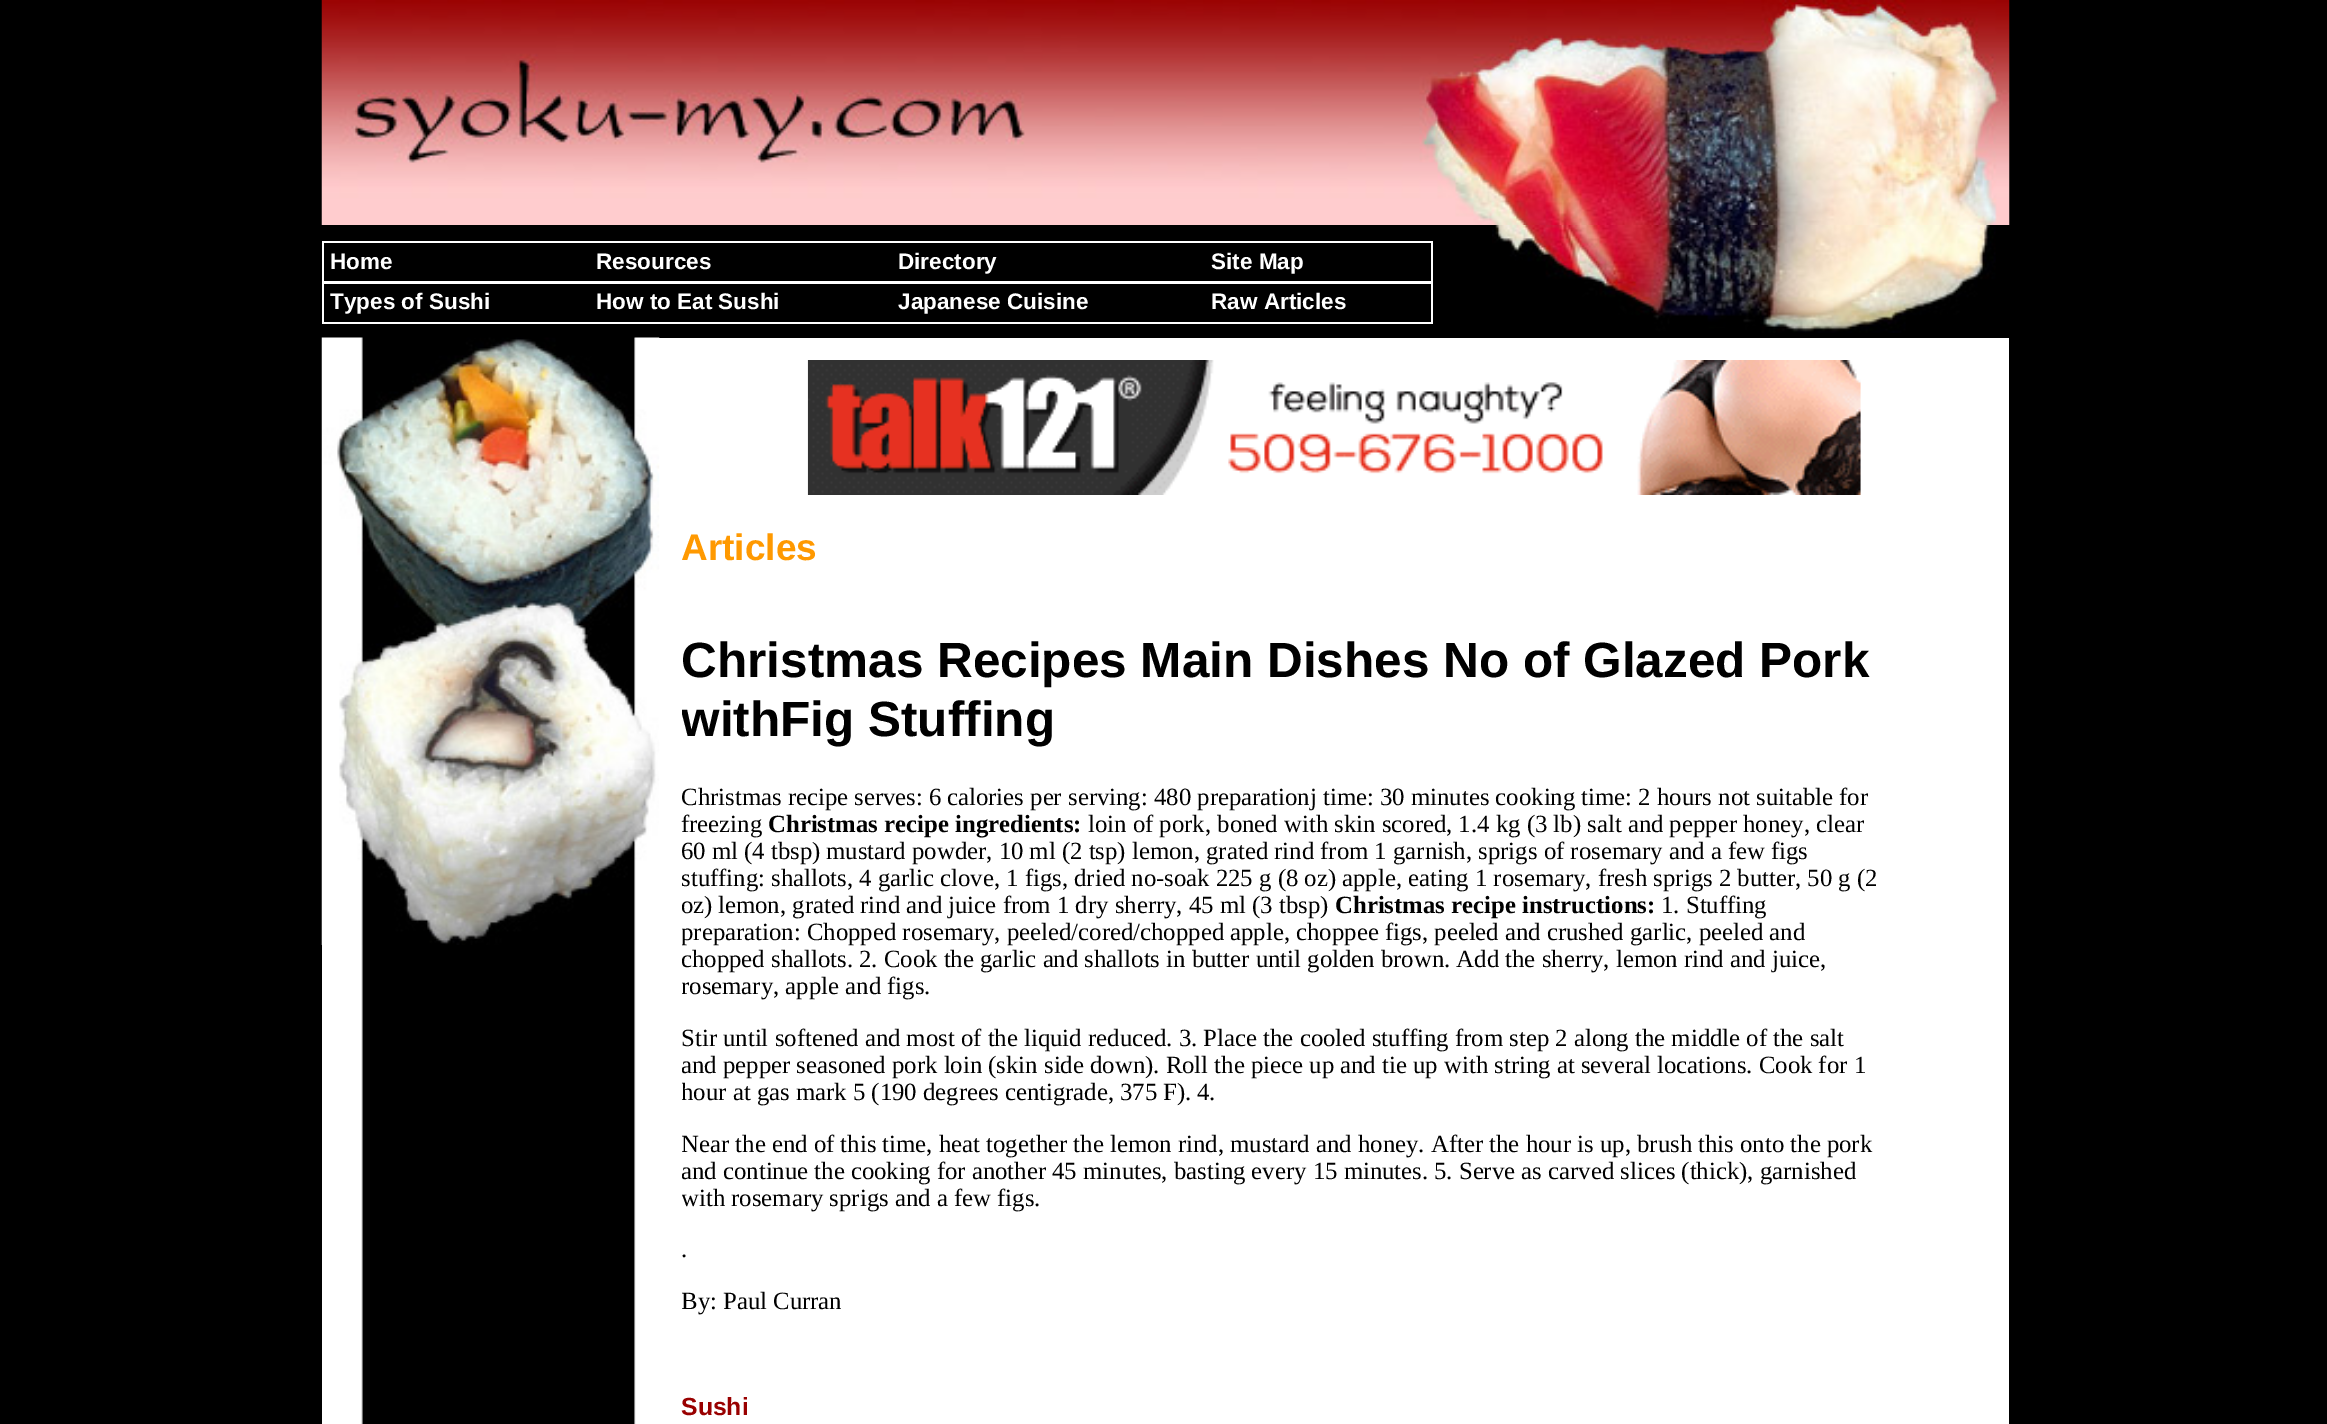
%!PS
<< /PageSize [2327 1424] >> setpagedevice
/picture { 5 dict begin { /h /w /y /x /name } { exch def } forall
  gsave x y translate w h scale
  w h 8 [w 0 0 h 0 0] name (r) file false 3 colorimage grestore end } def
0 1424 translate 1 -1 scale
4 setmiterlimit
0 setgray
0 0 2327 1424 rectfill
1 setgray
322 338 1687 1086 rectfill
(img1.rgb) 321 0 1689 225 picture
322 241 1111 83 rectfill
0 setgray
324 243 1107 38 rectfill
/LiberationSans-Bold [22.5 0 0 -22.5 0 0] selectfont
1 setgray
330 269 moveto (Home) show
596 269 moveto (Resources) show
898 269 moveto (Directory) show
1211 269 moveto (Site Map) show
0 setgray
324 284 1107 38 rectfill
1 setgray
330 309 moveto (Types of Sushi) show
596 309 moveto (How to Eat Sushi) show
898 309 moveto (Japanese Cuisine) show
1211 309 moveto (Raw Articles) show
(img2.rgb) 1492 225 504 108 picture
(img3.rgb) 361 945 275 479 picture
(img4.rgb) 321 337 339 608 picture
(img5.rgb) 807 360 1054 135 picture
/LiberationSans-Bold [37 0 0 -37 0 0] selectfont
1 0.6 0 setrgbcolor
681 560 moveto (Articles) show
/LiberationSans-Bold [49.5 0 0 -49.5 0 0] selectfont
0 setgray
681 677 moveto (Christmas Recipes Main Dishes No of Glazed Pork) show
gsave
682 599 1204 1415 rectclip
681 736 moveto (withFig Stuffing) show
/LiberationSerif-Regular [24.75 0 0 -24.75 0 0] selectfont
681 805 moveto (Christmas recipe serves: 6) show
grestore
/LiberationSerif-Regular [24.75 0 0 -24.75 0 0] selectfont
947 805 moveto (calories per serving: 480 preparationj time: 30 minutes cooking time: 2 hours not suitable for) show
681 832 moveto (freezing) show
/LiberationSerif-Bold [24.75 0 0 -24.75 0 0] selectfont
768 832 moveto (Christmas recipe ingredients:) show
/LiberationSerif-Regular [24.75 0 0 -24.75 0 0] selectfont
1088 832 moveto (loin of pork, boned with skin scored, 1.4 kg \(3 lb\) salt and pepper honey, clear) show
gsave
682 599 1204 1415 rectclip
681 859 moveto (60 ml \(4 tbsp\)) show
grestore
826 859 moveto (mustard powder, 10 ml \(2 tsp\) lemon, grated rind from 1 garnish, sprigs of rosemary and a few figs) show
gsave
682 599 1204 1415 rectclip
681 886 moveto (stuffing:) show
grestore
771 886 moveto (shallots, 4 garlic clove, 1 figs, dried no-soak 225 g \(8 oz\) apple, eating 1 rosemary, fresh sprigs 2 butter, 50 g \(2) show
gsave
682 599 1204 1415 rectclip
681 913 moveto (oz\)) show
grestore
718 913 moveto (lemon, grated rind and juice from 1 dry sherry, 45 ml \(3 tbsp\)) show
/LiberationSerif-Bold [24.75 0 0 -24.75 0 0] selectfont
1335 913 moveto (Christmas recipe instructions:) show
/LiberationSerif-Regular [24.75 0 0 -24.75 0 0] selectfont
1661 913 moveto (1. Stuffing) show
gsave
682 599 1204 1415 rectclip
681 940 moveto (preparation: Chopped rosemary, peeled/cored/chopped apple, choppee figs, peeled and crushed garlic, peeled and) show
681 967 moveto (chopped shallots.) show
grestore
859 967 moveto (2. Cook the garlic and shallots in butter until golden brown. Add the sherry, lemon rind and juice,) show
gsave
682 599 1204 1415 rectclip
681 994 moveto (rosemary, apple and figs.) show
grestore
681 1046 moveto (Stir until softened and most of the liquid reduced. 3. Place the cooled stuffing from step 2 along the middle of the salt) show
gsave
682 599 1204 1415 rectclip
681 1073 moveto (and pepper seasoned pork loin \(skin side down\). Roll the piece up and tie up with string at several locations. Cook for 1) show
681 1100 moveto (hour at gas mark 5 \(190 degrees centigrade, 375 F\).) show
grestore
1197 1100 moveto (4.) show
gsave
682 599 1204 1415 rectclip
681 1152 moveto (Near the end of this time, heat together the lemon rind, mustard and honey. After the hour is up, brush this onto the pork) show
681 1179 moveto (and continue the cooking for another 45 minutes, basting every 15 minutes.) show
grestore
1434 1179 moveto (5. Serve as carved slices \(thick\), garnished) show
gsave
682 599 1204 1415 rectclip
681 1206 moveto (with rosemary sprigs and a few figs.) show
grestore
681 1257 moveto (.) show
gsave
682 599 1204 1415 rectclip
681 1309 moveto (By: Paul Curran) show
grestore
/LiberationSans-Bold [24.75 0 0 -24.75 0 0] selectfont
0.6 0 0 setrgbcolor
681 1415 moveto (Sushi) show
showpage
